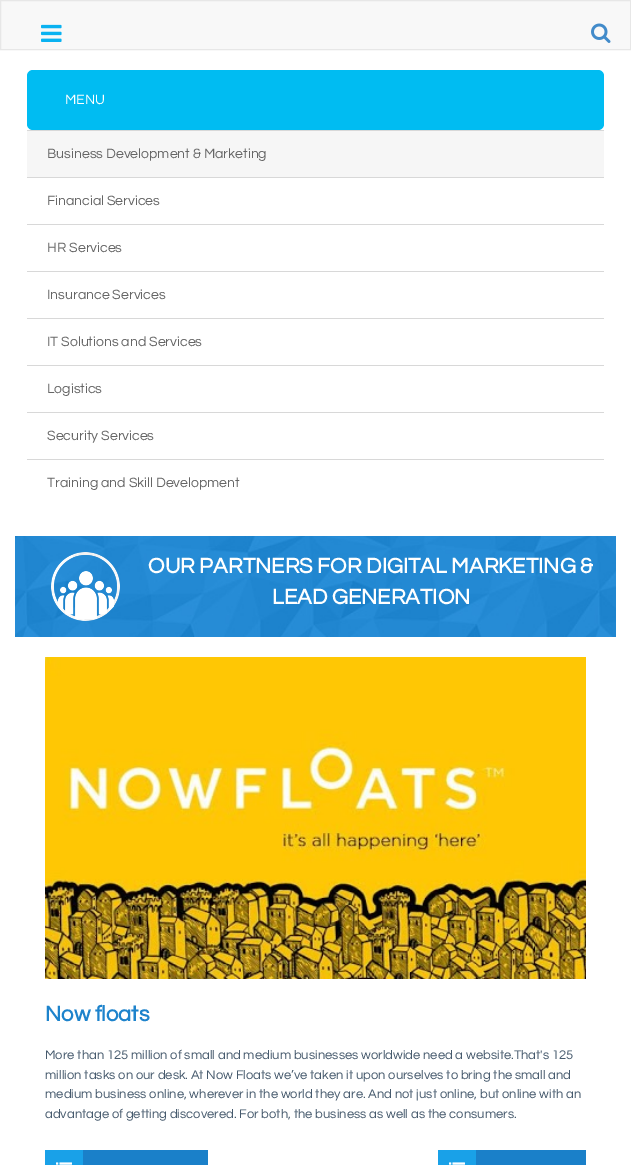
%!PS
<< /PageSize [631 1165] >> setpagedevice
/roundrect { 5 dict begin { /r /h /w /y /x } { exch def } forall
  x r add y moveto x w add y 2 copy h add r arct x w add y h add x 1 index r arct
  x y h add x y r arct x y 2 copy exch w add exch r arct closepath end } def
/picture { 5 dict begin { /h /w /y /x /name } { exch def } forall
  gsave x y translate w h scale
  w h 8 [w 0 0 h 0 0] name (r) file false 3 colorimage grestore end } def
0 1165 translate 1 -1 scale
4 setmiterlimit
1 setgray
0 0 631 1165 rectfill
0.973 setgray
newpath 0.5 0.5 moveto 630.5 0.5 lineto 630.5 49.5 lineto 0.5 49.5 lineto closepath gsave fill grestore
0.906 setgray
stroke
(img1.rgb) 41 24 21 18 picture
(img2.rgb) 591 23 20 20 picture
0.847 setgray
27 130 577 1 rectfill
0 0.737 0.949 setrgbcolor
27 70 577 60 6 roundrect fill
/Questrial-Regular [14 0 0 -14 0 0] selectfont
1 setgray
65 104 moveto (MENU) show
0.847 setgray
27 177 577 1 rectfill
0.965 setgray
27 131 577 46 rectfill
0.4 setgray
47 158 moveto (Business Development & Marketing) show
0.847 setgray
27 224 577 1 rectfill
0.4 setgray
47 205 moveto (Financial Services) show
0.847 setgray
27 271 577 1 rectfill
0.4 setgray
47 252 moveto (HR Services) show
0.847 setgray
27 318 577 1 rectfill
0.4 setgray
47 299 moveto (Insurance Services) show
0.847 setgray
27 365 577 1 rectfill
0.4 setgray
47 346 moveto (IT Solutions and Services) show
0.847 setgray
27 412 577 1 rectfill
0.4 setgray
47 393 moveto (Logistics) show
0.847 setgray
27 459 577 1 rectfill
0.4 setgray
47 440 moveto (Security Services) show
47 487 moveto (Training and Skill Development) show
(img3.rgb) 15 536 601 101 picture
(img4.rgb) 51 552 69 69 picture
/Questrial-Bold [22 0 0 -22 0 0] selectfont
1 setgray
148 573 moveto (OUR PARTNERS FOR DIGITAL MARKETING &) show
272 604 moveto (LEAD GENERATION) show
(img5.rgb) 45 657 541 322 picture
0.114 0.514 0.8 setrgbcolor
45 1021 moveto (Now floats) show
/Questrial-Regular [13 0 0 -13 0 0] selectfont
0.275 0.353 0.427 setrgbcolor
45 1059 moveto (More than 125 million of small and medium businesses worldwide need a website.That's 125) show
45 1079 moveto (million tasks on our desk. At Now Floats we’ve taken it upon ourselves to bring the small and) show
45 1098 moveto (medium business online, wherever in the world they are. And not just online, but online with an) show
45 1118 moveto (advantage of getting discovered. For both, the business as well as the consumers.) show
0.102 0.502 0.788 setrgbcolor
83 1150 125 15 rectfill
0.098 0.631 0.91 setrgbcolor
45 1150 38 15 rectfill
(img6.rgb) 56 1162 16 3 picture
0.102 0.502 0.788 setrgbcolor
476 1150 110 15 rectfill
0.098 0.631 0.91 setrgbcolor
438 1150 38 15 rectfill
(img6.rgb) 449 1162 16 3 picture
showpage
